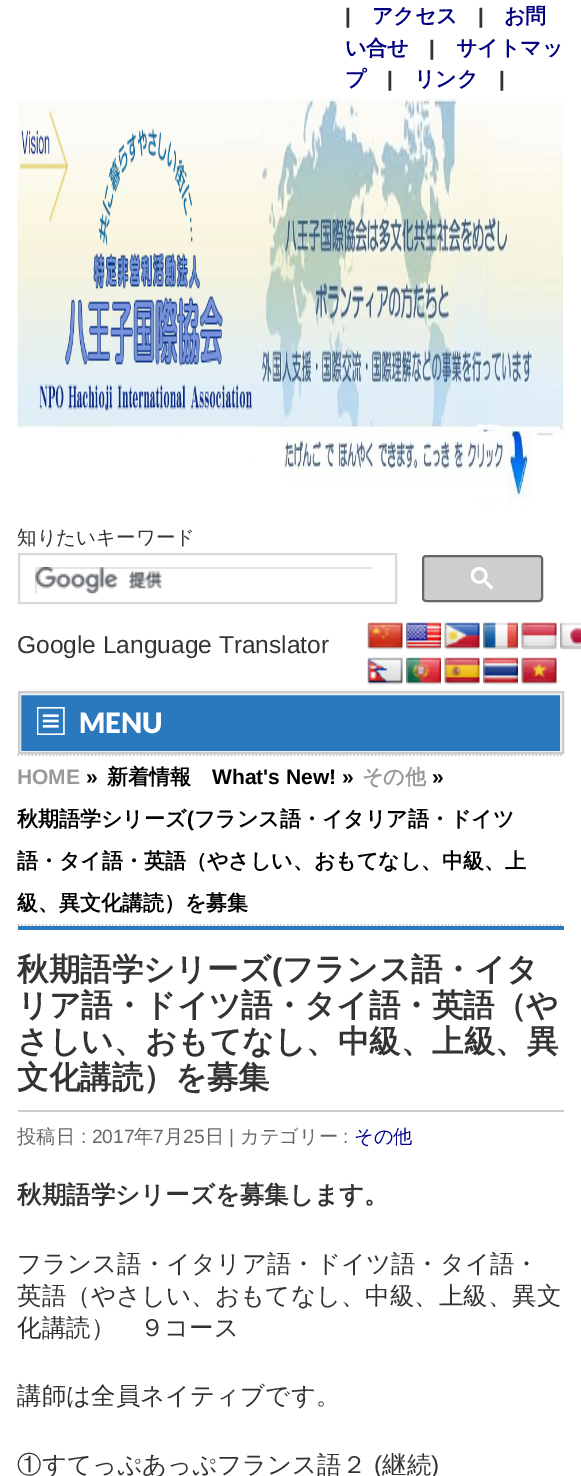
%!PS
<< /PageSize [581 1476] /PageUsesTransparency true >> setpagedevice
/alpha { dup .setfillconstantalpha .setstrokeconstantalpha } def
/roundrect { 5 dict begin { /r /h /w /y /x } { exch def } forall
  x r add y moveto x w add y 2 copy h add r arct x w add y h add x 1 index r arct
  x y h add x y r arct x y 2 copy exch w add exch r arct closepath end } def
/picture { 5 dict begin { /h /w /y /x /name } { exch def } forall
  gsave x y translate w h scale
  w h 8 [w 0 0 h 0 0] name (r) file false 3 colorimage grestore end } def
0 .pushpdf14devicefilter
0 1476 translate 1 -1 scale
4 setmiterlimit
1 setgray
0 0 581 1476 rectfill
/LiberationSans-Bold [21 0 0 -21 0 0] selectfont
0.2 setgray
345 23 moveto (|) show
/WenQuanYiZenHei-Bold [21 0 0 -21 0 0] selectfont
0 0 0.502 setrgbcolor
372 23 moveto (アクセス) show
/LiberationSans-Bold [21 0 0 -21 0 0] selectfont
0.2 setgray
478 23 moveto (|) show
/WenQuanYiZenHei-Bold [21 0 0 -21 0 0] selectfont
0 0 0.502 setrgbcolor
504 23 moveto (お問) show
345 55 moveto (い合せ) show
/LiberationSans-Bold [21 0 0 -21 0 0] selectfont
0.2 setgray
429 55 moveto (|) show
/WenQuanYiZenHei-Bold [21 0 0 -21 0 0] selectfont
0 0 0.502 setrgbcolor
456 55 moveto (サイトマッ) show
345 86 moveto (プ) show
/LiberationSans-Bold [21 0 0 -21 0 0] selectfont
0.2 setgray
387 86 moveto (|) show
/WenQuanYiZenHei-Bold [21 0 0 -21 0 0] selectfont
0 0 0.502 setrgbcolor
414 86 moveto (リンク) show
/LiberationSans-Bold [21 0 0 -21 0 0] selectfont
0.2 setgray
499 86 moveto (|) show
(img1.rgb) 17 96 547 411 picture
/WenQuanYiZenHei-Medium [19.5 0 0 -19.5 0 0] selectfont
17 544 moveto (知りたいキーワード) show
0.851 setgray
2 setlinewidth
19 554 377 49 rectstroke
(img2.rgb) 35 567 128 27 picture
gsave
35 567 338 26 rectclip
0.1 alpha
0 setgray
newpath -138 394 moveto 546 394 lineto 546 766 lineto -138 766 lineto closepath 37 569 moveto 374 569 lineto 374 595 lineto 37 595 lineto closepath eofill
grestore
0.808 setgray
423 556 119 45 3 roundrect gsave fill grestore
0.4 setgray
stroke
(img3.rgb) 471 567 23 23 picture
/LiberationSans-Regular [24.5 0 0 -24.5 0 0] selectfont
0.2 setgray
17 653 moveto (Google Language Translator) show
(img4.rgb) 367 622 36 28 picture
(img5.rgb) 406 622 35 28 picture
(img6.rgb) 444 622 36 28 picture
(img7.rgb) 483 622 35 28 picture
(img8.rgb) 521 622 36 28 picture
(img9.rgb) 560 622 21 28 picture
(img10.rgb) 367 657 36 28 picture
(img11.rgb) 406 657 35 28 picture
(img12.rgb) 444 657 36 28 picture
(img13.rgb) 483 657 35 28 picture
(img14.rgb) 521 657 36 28 picture
0.165 0.475 0.749 setrgbcolor
newpath 20 694 moveto 561 694 lineto 561 752 lineto 20 752 lineto closepath gsave fill grestore
0.918 0.949 0.976 setrgbcolor
stroke
0.8 setgray
19 692 544 61 rectstroke
(img15.rgb) 37 707 28 28 picture
/Lato-Black [28 0 0 -28 0 0] selectfont
1 setgray
79 733 moveto (MENU) show
0.8 setgray
1.8 setlinewidth
[1.75 1.75] 0 setdash
newpath 17.5 755 moveto 563.5 755 lineto stroke
newpath 17.5 925 moveto 563.5 925 lineto stroke
/LiberationSans-Bold [21 0 0 -21 0 0] selectfont
0.6 setgray
17 784 moveto (HOME) show
0 setgray
86 784 moveto (») show
/WenQuanYiZenHei-Bold [21 0 0 -21 0 0] selectfont
107 784 moveto (新着情報) show
/LiberationSans-Bold [21 0 0 -21 0 0] selectfont
212 784 moveto (What's New! ») show
/WenQuanYiZenHei-Bold [21 0 0 -21 0 0] selectfont
0.6 setgray
362 784 moveto (その他) show
/LiberationSans-Bold [21 0 0 -21 0 0] selectfont
0 setgray
432 784 moveto (») show
/WenQuanYiZenHei-Bold [21 0 0 -21 0 0] selectfont
17 826 moveto (秋期語学シリーズ) show
/LiberationSans-Bold [21 0 0 -21 0 0] selectfont
187 826 moveto (\() show
/WenQuanYiZenHei-Bold [21 0 0 -21 0 0] selectfont
194 826 moveto (フランス語・イタリア語・ドイツ) show
17 868 moveto (語・タイ語・英語（やさしい、おもてなし、中級、上) show
17 910 moveto (級、異文化講読）を募集) show
0.165 0.475 0.749 setrgbcolor
18 926 546 4 rectfill
0.8 setgray
18 1110 546 2 rectfill
/WenQuanYiZenHei-Bold [31.5 0 0 -31.5 0 0] selectfont
0.2 setgray
17 980 moveto (秋期語学シリーズ) show
/LiberationSans-Bold [31.5 0 0 -31.5 0 0] selectfont
272 980 moveto (\() show
/WenQuanYiZenHei-Bold [31.5 0 0 -31.5 0 0] selectfont
282 980 moveto (フランス語・イタ) show
17 1016 moveto (リア語・ドイツ語・タイ語・英語（や) show
17 1052 moveto (さしい、おもてなし、中級、上級、異) show
17 1088 moveto (文化講読）を募集) show
/WenQuanYiZenHei-Medium [19.25 0 0 -19.25 0 0] selectfont
0.4 setgray
17 1143 moveto (投稿日) show
/LiberationSans-Regular [19.25 0 0 -19.25 0 0] selectfont
81 1143 moveto (: 2017) show
/WenQuanYiZenHei-Medium [19.25 0 0 -19.25 0 0] selectfont
134 1143 moveto (年) show
/LiberationSans-Regular [19.25 0 0 -19.25 0 0] selectfont
153 1143 moveto (7) show
/WenQuanYiZenHei-Medium [19.25 0 0 -19.25 0 0] selectfont
164 1143 moveto (月) show
/LiberationSans-Regular [19.25 0 0 -19.25 0 0] selectfont
183 1143 moveto (25) show
/WenQuanYiZenHei-Medium [19.25 0 0 -19.25 0 0] selectfont
205 1143 moveto (日) show
/LiberationSans-Regular [19.25 0 0 -19.25 0 0] selectfont
229 1143 moveto (|) show
/WenQuanYiZenHei-Medium [19.25 0 0 -19.25 0 0] selectfont
240 1143 moveto (カテゴリー) show
/LiberationSans-Regular [19.25 0 0 -19.25 0 0] selectfont
343 1143 moveto (:) show
/WenQuanYiZenHei-Medium [19.25 0 0 -19.25 0 0] selectfont
0 0 0.545 setrgbcolor
354 1143 moveto (その他) show
/WenQuanYiZenHei-Bold [24.5 0 0 -24.5 0 0] selectfont
0.2 setgray
17 1203 moveto (秋期語学シリーズを募集します。) show
/WenQuanYiZenHei-Medium [24.5 0 0 -24.5 0 0] selectfont
17 1272 moveto (フランス語・イタリア語・ドイツ語・タイ語・) show
17 1304 moveto (英語（やさしい、おもてなし、中級、上級、異文) show
17 1336 moveto (化講読）　９コース) show
17 1404 moveto (講師は全員ネイティブです。) show
17 1473 moveto (①すてっぷあっぷフランス語２) show
/LiberationSans-Regular [24.5 0 0 -24.5 0 0] selectfont
374 1473 moveto (\() show
/WenQuanYiZenHei-Medium [24.5 0 0 -24.5 0 0] selectfont
382 1473 moveto (継続) show
/LiberationSans-Regular [24.5 0 0 -24.5 0 0] selectfont
431 1473 moveto (\)) show
.poppdf14devicefilter showpage
